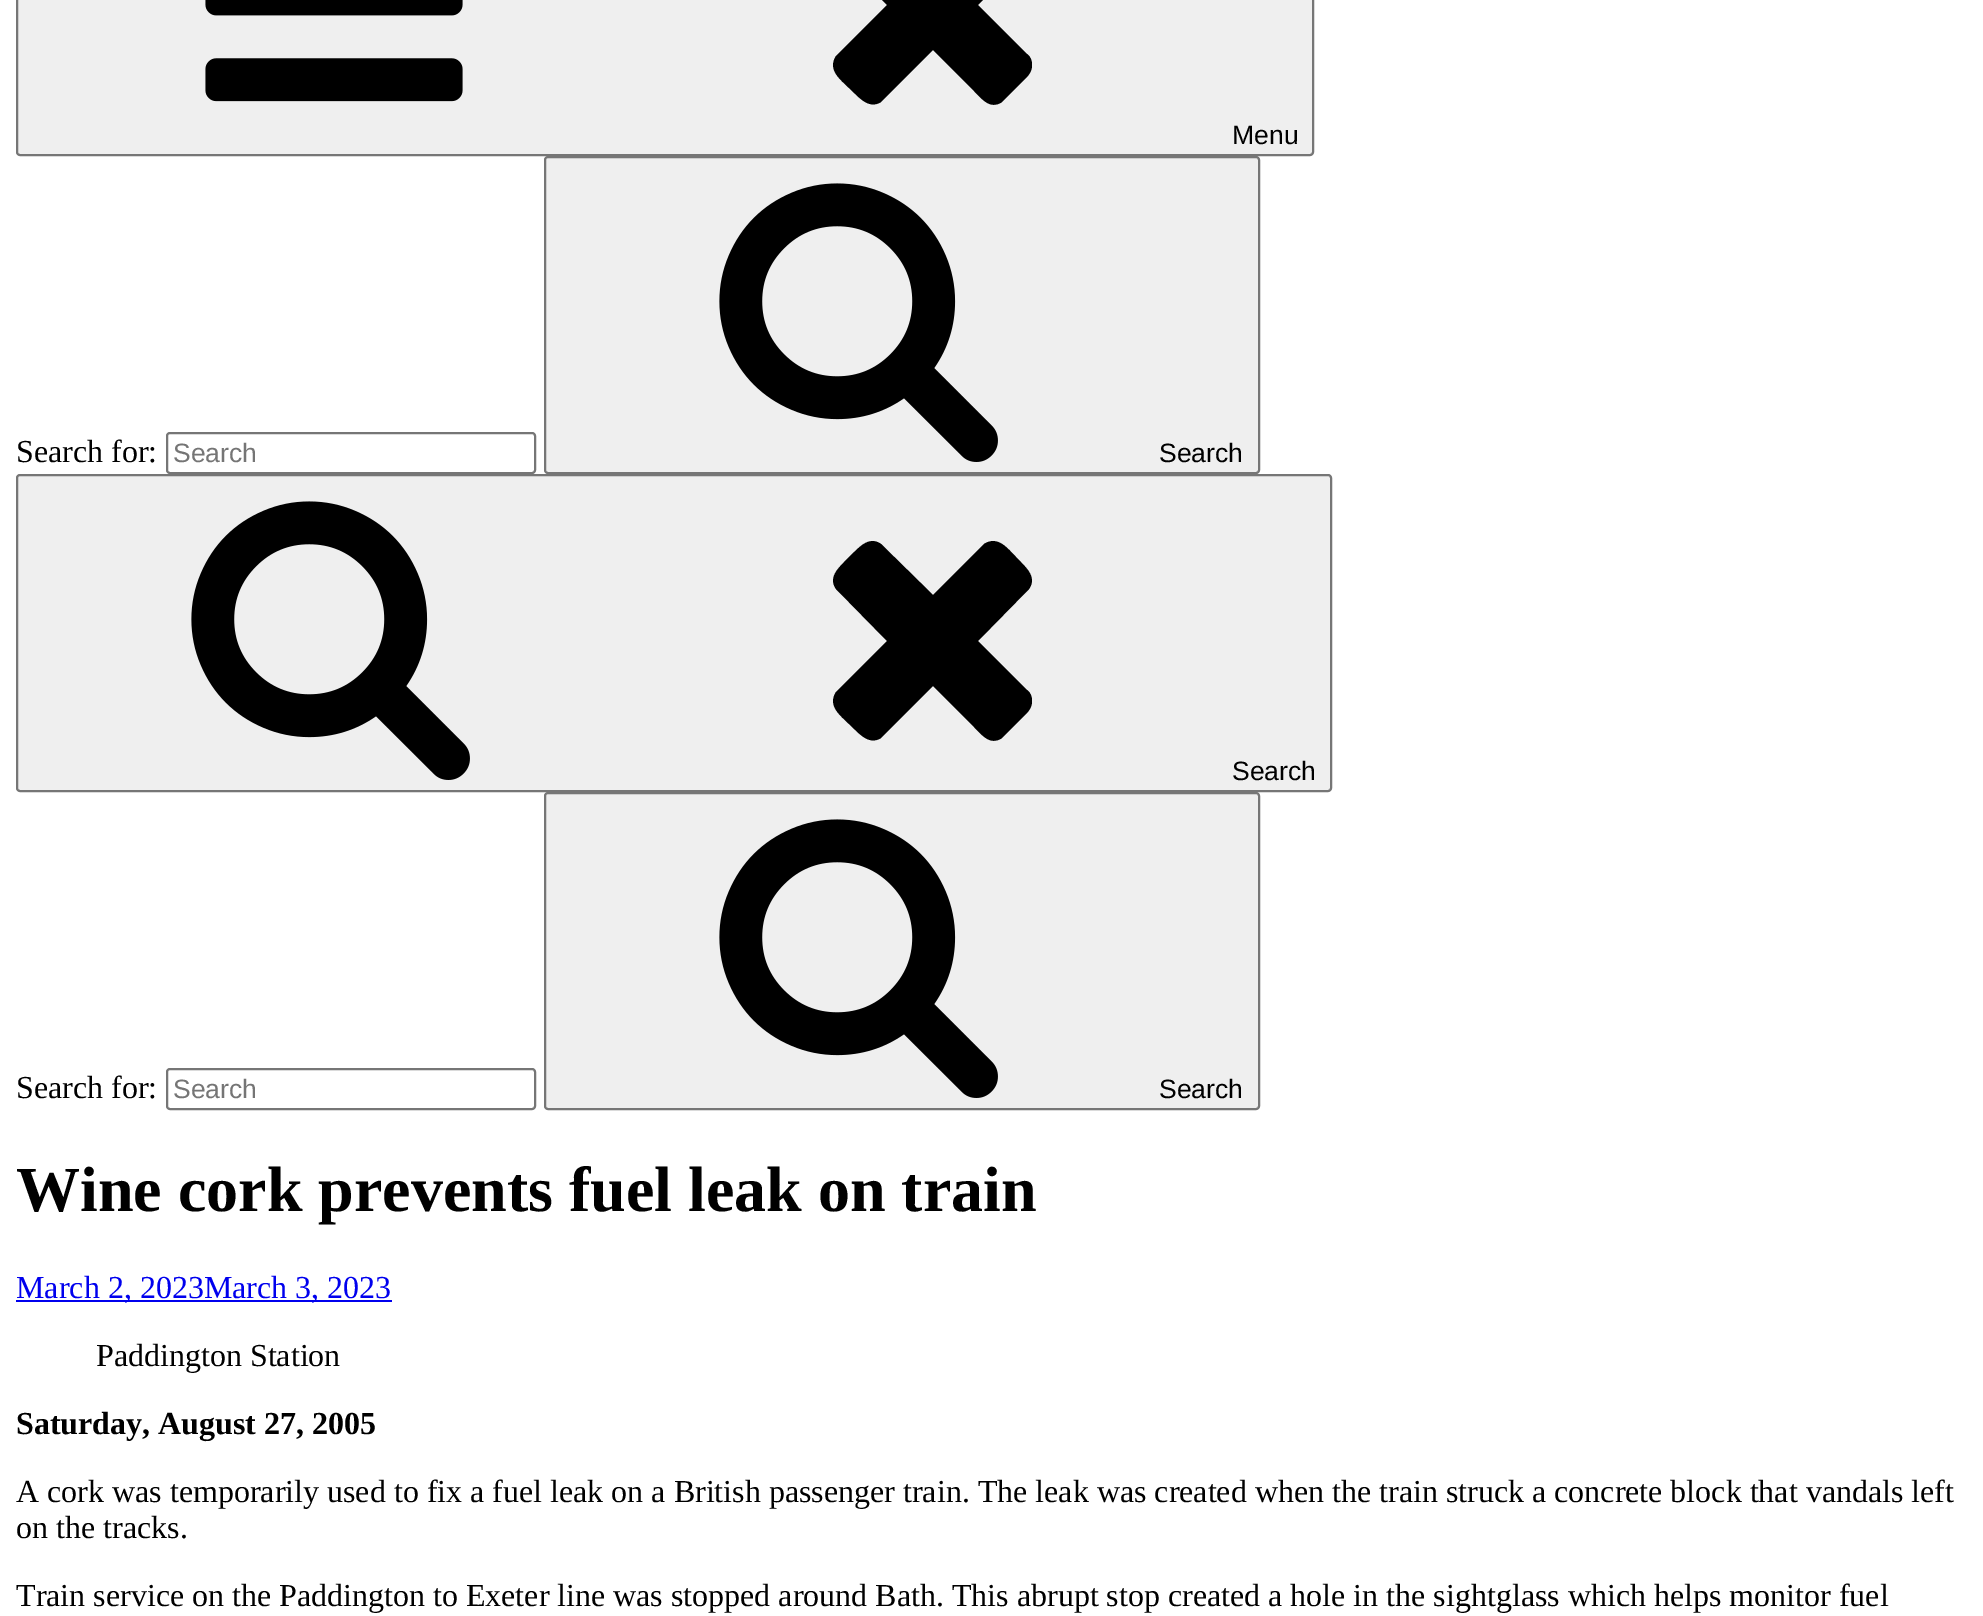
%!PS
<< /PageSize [1983 1616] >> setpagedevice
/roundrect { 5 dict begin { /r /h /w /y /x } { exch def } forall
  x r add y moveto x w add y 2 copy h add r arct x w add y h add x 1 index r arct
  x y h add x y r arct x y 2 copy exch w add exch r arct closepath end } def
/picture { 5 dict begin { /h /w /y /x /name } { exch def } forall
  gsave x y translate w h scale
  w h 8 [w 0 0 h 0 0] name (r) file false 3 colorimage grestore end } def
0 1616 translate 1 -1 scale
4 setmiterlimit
1 setgray
0 0 1983 1616 rectfill
0.937 setgray
17 -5 1296 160 3 roundrect gsave fill grestore
0.463 setgray
2 setlinewidth
stroke
(img1.rgb) 205 0 258 102 picture
0 setgray
newpath 1032 65 moveto 1032 72 1028 76 1024 80 curveto 1002 102 lineto 990 110 982 99 974 91 curveto 933 50 lineto 881 102 lineto 868 110 858 96 849 88 curveto 841 80 827 70 836 56 curveto 887 5 lineto 836 -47 lineto 827 -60 841 -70 849 -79 curveto 858 -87 868 -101 881 -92 curveto 933 -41 lineto 984 -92 lineto 998 -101 1008 -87 1016 -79 curveto 1024 -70 1038 -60 1029 -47 curveto 978 5 lineto 1027 54 lineto 1031 57 1032 61 1032 65 curveto closepath fill
/LiberationSans-Regular [26.5 0 0 -26.5 0 0] selectfont
1232 144 moveto (Menu) show
/LiberationSerif-Regular [32 0 0 -32 0 0] selectfont
16 462 moveto (Search for:) show
0.463 setgray
167 433 368 40 3 roundrect stroke
/LiberationSans-Regular [26.5 0 0 -26.5 0 0] selectfont
0.459 setgray
173 462 moveto (Search) show
0.937 setgray
545 157 714 316 3 roundrect gsave fill grestore
0.463 setgray
stroke
(img2.rgb) 719 183 279 279 picture
0 setgray
1159 462 moveto (Search) show
0.937 setgray
17 475 1314 316 3 roundrect gsave fill grestore
0.463 setgray
stroke
(img2.rgb) 191 501 279 279 picture
0 setgray
newpath 1032 701 moveto 1032 708 1028 712 1024 716 curveto 1002 738 lineto 990 746 982 735 974 727 curveto 933 686 lineto 881 738 lineto 868 746 858 732 849 724 curveto 841 716 827 706 836 692 curveto 887 641 lineto 836 589 lineto 827 576 841 566 849 557 curveto 858 549 868 535 881 544 curveto 933 595 lineto 984 544 lineto 998 535 1008 549 1016 557 curveto 1024 566 1038 576 1029 589 curveto 978 641 lineto 1027 690 lineto 1031 693 1032 697 1032 701 curveto closepath fill
1232 780 moveto (Search) show
/LiberationSerif-Regular [32 0 0 -32 0 0] selectfont
16 1098 moveto (Search for:) show
0.463 setgray
167 1069 368 40 3 roundrect stroke
/LiberationSans-Regular [26.5 0 0 -26.5 0 0] selectfont
0.459 setgray
173 1098 moveto (Search) show
0.937 setgray
545 793 714 316 3 roundrect gsave fill grestore
0.463 setgray
stroke
(img2.rgb) 719 819 279 279 picture
0 setgray
1159 1098 moveto (Search) show
/LiberationSerif-Bold [64 0 0 -64 0 0] selectfont
16 1211 moveto (Wine cork prevents fuel leak on train) show
0 0 0.933 setrgbcolor
16 1300 376 2 rectfill
/LiberationSerif-Regular [32 0 0 -32 0 0] selectfont
16 1298 moveto (March 2, 2023March 3, 2023) show
0 setgray
96 1366 moveto (Paddington Station) show
/LiberationSerif-Bold [32 0 0 -32 0 0] selectfont
16 1434 moveto (Saturday, August 27, 2005) show
/LiberationSerif-Regular [32 0 0 -32 0 0] selectfont
16 1502 moveto (A cork was temporarily used to fix a fuel leak on a British passenger train. The leak was created when the train struck a concrete block that vandals left) show
16 1538 moveto (on the tracks.) show
16 1606 moveto (Train service on the Paddington to Exeter line was stopped around Bath. This abrupt stop created a hole in the sightglass which helps monitor fuel) show
showpage
